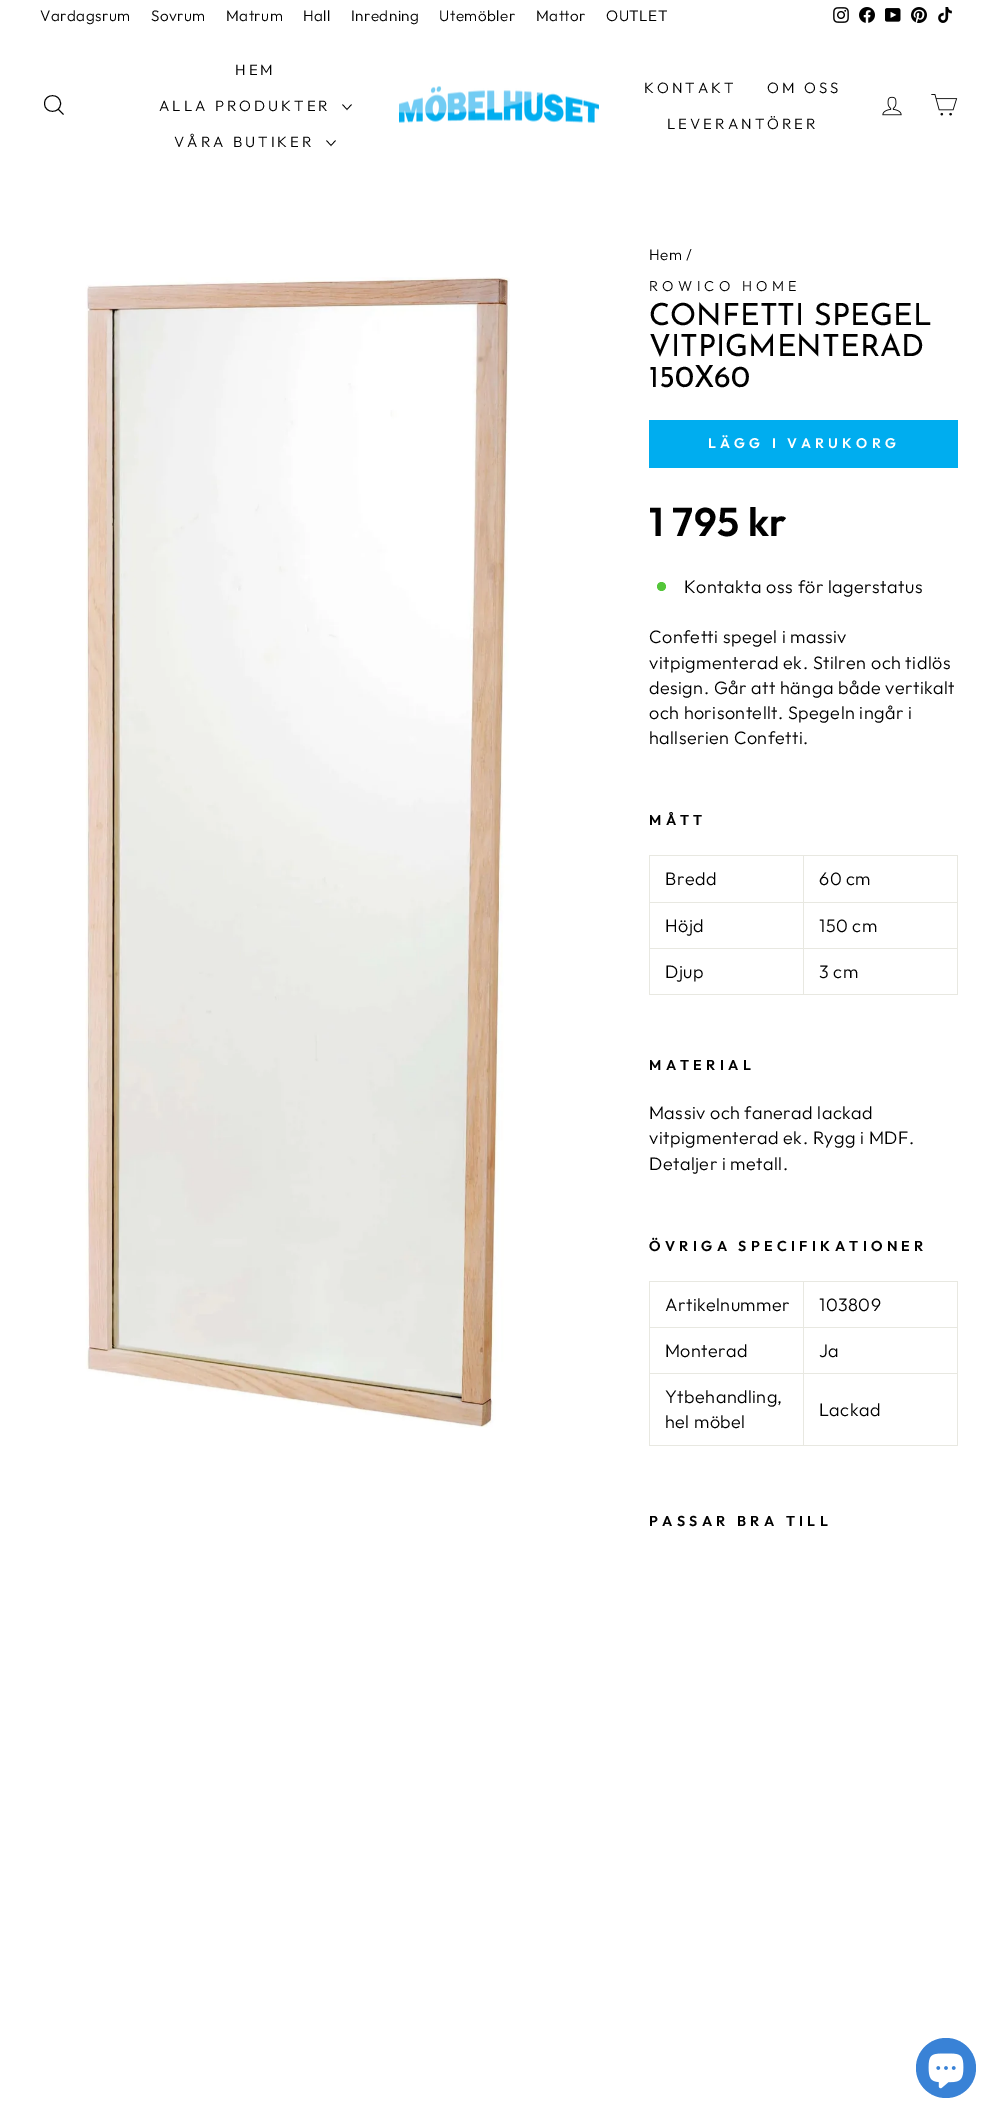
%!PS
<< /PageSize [998 2119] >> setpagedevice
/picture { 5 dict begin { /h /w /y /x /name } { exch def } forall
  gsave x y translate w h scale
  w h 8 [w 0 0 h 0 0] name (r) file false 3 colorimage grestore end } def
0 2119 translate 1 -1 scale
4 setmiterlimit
1 setgray
0 0 998 2119 rectfill
/Outfit-Light [15.25 0 0 -15.25 0 0] selectfont
0 setgray
40 21 moveto 0.45 0 (Vardagsrum) ashow
151 21 moveto 0.45 0 (Sovrum) ashow
226 21 moveto 0.45 0 (Matrum) ashow
303 21 moveto 0.45 0 (Hall) ashow
351 21 moveto 0.45 0 (Inredning) ashow
439 21 moveto 0.45 0 (Utemöbler) ashow
536 21 moveto 0.45 0 (Mattor) ashow
606 21 moveto 0.45 0 (OUTLET) ashow
(img1.rgb) 833 7 16 16 picture
(img2.rgb) 859 7 16 16 picture
(img3.rgb) 885 8 16 14 picture
(img4.rgb) 911 7 16 16 picture
(img5.rgb) 938 7 14 16 picture
0.9 setlinewidth
newpath 60.5 103.5 moveto 60.5 114 44.5 114 44.5 103.5 curveto 44.5 93 60.5 93 60.5 103.5 curveto closepath 63.5 114.5 moveto 58.5 109.5 lineto stroke
/Outfit-Light [15 0 0 -15 0 0] selectfont
235 75 moveto 3 0 (HEM) ashow
159 111 moveto 3 0 (ALLA PRODUKTER) ashow
0.7 setlinewidth
newpath 342.5 104.5 moveto 347 109.5 lineto 351.5 104.5 lineto stroke
174 147 moveto 3 0 (VÅRA BUTIKER) ashow
newpath 326.5 140.5 moveto 331 145.5 lineto 335.5 140.5 lineto stroke
(img6.rgb) 399 86 200 37 picture
644 93 moveto 3 0 (KONTAKT) ashow
767 93 moveto 3 0 (OM OSS) ashow
667 129 moveto 3 0 (LEVERANTÖRER) ashow
(img7.rgb) 882 96 20 20 picture
(img8.rgb) 931 94 27 22 picture
(img9.rgb) 85 277 425 1151 picture
/Outfit-Light [15.25 0 0 -15.25 0 0] selectfont
649 260 moveto 0.45 0 (Hem /) ashow
/Outfit-Light [14.4 0 0 -14.4 0 0] selectfont
649 291 moveto 4.3 0 (ROWICO HOME) ashow
/JosefinSans-Regular [30.5 0 0 -30.5 0 0] selectfont
649 325 moveto (CONFETTI SPEGEL) show
649 356 moveto (VITPIGMENTERAD) show
649 387 moveto (150X60) show
0 0.678 0.937 setrgbcolor
649 420 309 48 rectfill
/Outfit-SemiBold [14 0 0 -14 0 0] selectfont
1 setgray
708 448 moveto 4.25 0 (LÄGG I VARUKORG) ashow
/Outfit-SemiBold [40 0 0 -40 0 0] selectfont
0 setgray
649 536 moveto 0.45 0 (1 795 kr) ashow
0.329 0.776 0.227 setrgbcolor
newpath 661.5 586.5 4.5 0 360 arc closepath fill
/Outfit-Light [18 0 0 -18 0 0] selectfont
0 setgray
684 593 moveto 0.45 0 (Kontakta oss för lagerstatus) ashow
649 643 moveto 0.45 0 (Confetti spegel i massiv) ashow
649 669 moveto 0.45 0 (vitpigmenterad ek. Stilren och tidlös) ashow
649 694 moveto 0.45 0 (design. Går att hänga både vertikalt) ashow
649 719 moveto 0.45 0 (och horisontellt. Spegeln ingår i) ashow
649 744 moveto 0.45 0 (hallserien Confetti.) ashow
/Outfit-SemiBold [14.4 0 0 -14.4 0 0] selectfont
649 825 moveto 4.3 0 (MÅTT) ashow
0.91 0.91 0.882 setrgbcolor
649 855 309 140 rectfill
1 setgray
650 856 153 46 rectfill
/Outfit-Light [18 0 0 -18 0 0] selectfont
0 setgray
665 885 moveto 0.45 0 (Bredd) ashow
1 setgray
804 856 153 46 rectfill
0 setgray
819 885 moveto 0.45 0 (60 cm) ashow
1 setgray
650 903 153 45 rectfill
0 setgray
665 932 moveto 0.45 0 (Höjd) ashow
1 setgray
804 903 153 45 rectfill
0 setgray
819 932 moveto 0.45 0 (150 cm) ashow
1 setgray
650 949 153 45 rectfill
0 setgray
665 978 moveto 0.45 0 (Djup) ashow
1 setgray
804 949 153 45 rectfill
0 setgray
819 978 moveto 0.45 0 (3 cm) ashow
/Outfit-SemiBold [14.4 0 0 -14.4 0 0] selectfont
649 1070 moveto 4.3 0 (MATERIAL) ashow
/Outfit-Light [18 0 0 -18 0 0] selectfont
649 1119 moveto 0.45 0 (Massiv och fanerad lackad) ashow
649 1144 moveto 0.45 0 (vitpigmenterad ek. Rygg i MDF.) ashow
649 1170 moveto 0.45 0 (Detaljer i metall.) ashow
/Outfit-SemiBold [14.4 0 0 -14.4 0 0] selectfont
649 1251 moveto 4.3 0 (ÖVRIGA SPECIFIKATIONER) ashow
0.91 0.91 0.882 setrgbcolor
649 1281 309 165 rectfill
1 setgray
650 1282 153 45 rectfill
/Outfit-Light [18 0 0 -18 0 0] selectfont
0 setgray
665 1311 moveto 0.45 0 (Artikelnummer) ashow
1 setgray
804 1282 153 45 rectfill
0 setgray
819 1311 moveto 0.45 0 (103809) ashow
1 setgray
650 1328 153 45 rectfill
0 setgray
665 1357 moveto 0.45 0 (Monterad) ashow
1 setgray
804 1328 153 45 rectfill
0 setgray
819 1357 moveto 0.45 0 (Ja) ashow
1 setgray
650 1374 153 71 rectfill
0 setgray
665 1403 moveto 0.45 0 (Ytbehandling,) ashow
665 1428 moveto 0.45 0 (hel möbel) ashow
1 setgray
804 1374 153 71 rectfill
0 setgray
819 1416 moveto 0.45 0 (Lackad) ashow
/Outfit-SemiBold [14.4 0 0 -14.4 0 0] selectfont
649 1526 moveto 4.3 0 (PASSAR BRA TILL) ashow
0.224 0.51 0.839 setrgbcolor
newpath 946 2068 30 0 360 arc closepath fill
(img10.rgb) 928 2053 36 36 picture
showpage
